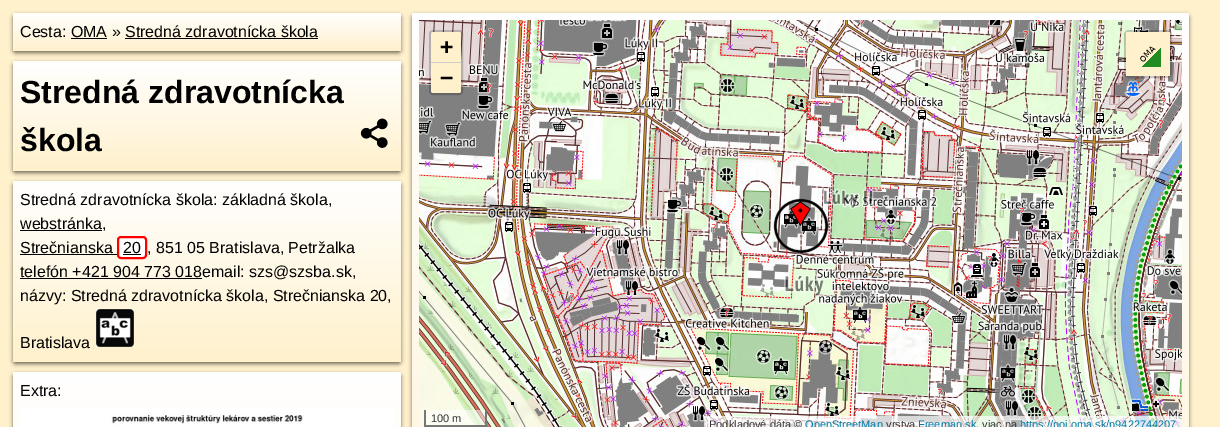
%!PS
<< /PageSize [1220 427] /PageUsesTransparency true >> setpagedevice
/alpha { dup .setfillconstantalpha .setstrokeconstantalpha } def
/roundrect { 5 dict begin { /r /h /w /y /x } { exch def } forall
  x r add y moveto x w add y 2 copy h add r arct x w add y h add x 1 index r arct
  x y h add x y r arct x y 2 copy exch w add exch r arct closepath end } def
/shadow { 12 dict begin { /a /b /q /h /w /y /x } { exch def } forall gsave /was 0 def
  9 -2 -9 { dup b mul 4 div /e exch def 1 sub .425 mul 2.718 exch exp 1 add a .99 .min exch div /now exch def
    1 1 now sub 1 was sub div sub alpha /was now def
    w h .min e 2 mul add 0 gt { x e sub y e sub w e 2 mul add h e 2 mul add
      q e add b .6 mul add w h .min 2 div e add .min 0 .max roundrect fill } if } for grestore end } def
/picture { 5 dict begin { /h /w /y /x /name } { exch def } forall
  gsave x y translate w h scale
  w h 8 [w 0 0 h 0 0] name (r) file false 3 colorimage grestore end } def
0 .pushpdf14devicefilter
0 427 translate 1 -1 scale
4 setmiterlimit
1 0.945 0.8 setrgbcolor
0 0 1220 427 rectfill
0 setgray
13 15 388 38 3 2 0.55 shadow
gsave 13 13 388 38 3 roundrect clip newpath
<< /ShadingType 2 /ColorSpace /DeviceRGB /Coords [207 13 207 51] /Extend [true true] /Function << /FunctionType 2 /Domain [0 1] /C0 [1 1 1] /C1 [1 0.945 0.8] /N 1 >> >> shfill grestore
/LiberationSans-Regular [16 0 0 -16 0 0] selectfont
20 37 moveto (Cesta: OMA » Stredná zdravotnícka škola) show
71 38 36 1 rectfill
125 38 193 1 rectfill
13 63 388 110 3 2 0.55 shadow
gsave 13 61 388 110 3 roundrect clip newpath
<< /ShadingType 2 /ColorSpace /DeviceRGB /Coords [207 61 207 171] /Extend [true true] /Function << /FunctionType 2 /Domain [0 1] /C0 [1 1 1] /C1 [1 0.945 0.8] /N 1 >> >> shfill grestore
/LiberationSans-Bold [32 0 0 -32 0 0] selectfont
20 103 moveto (Stredná zdravotnícka) show
20 151 moveto (škola) show
(img1.rgb) 360 118 28 30 picture
13 183 388 181 3 2 0.55 shadow
gsave 13 181 388 181 3 roundrect clip newpath
<< /ShadingType 2 /ColorSpace /DeviceRGB /Coords [207 181 207 362] /Extend [true true] /Function << /FunctionType 2 /Domain [0 1] /C0 [1 1 1] /C1 [1 0.945 0.8] /N 1 >> >> shfill grestore
/LiberationSans-Regular [16 0 0 -16 0 0] selectfont
20 205 moveto (Stredná zdravotnícka škola: základná škola,) show
20 230 82 1 rectfill
20 229 moveto (webstránka,) show
20 253 moveto (Strečnianska) show
20 254 97 1 rectfill
1 setgray
118 237 28 21 3 roundrect gsave fill grestore
1 0 0 setrgbcolor
2 setlinewidth
stroke
0 setgray
123 253 moveto (20) show
123 254 18 1 rectfill
147 253 moveto (, 851 05 Bratislava, Petržalka) show
20 278 182 1 rectfill
20 277 moveto (telefón +421 904 773 018email: szs@szsba.sk,) show
20 301 moveto (názvy: Stredná zdravotnícka škola, Strečnianska 20,) show
20 348 moveto (Bratislava) show
(img2.rgb) 96 309 38 38 picture
13 374 388 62 3 2 0.55 shadow
gsave 13 372 388 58 3 roundrect clip newpath
<< /ShadingType 2 /ColorSpace /DeviceRGB /Coords [207 372 207 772] /Extend [true true] /Function << /FunctionType 2 /Domain [0 1] /C0 [1 1 1] /C1 [1 0.945 0.8] /N 1 >> >> shfill grestore
20 396 moveto (Extra:) show
(img3.rgb) 20 407 374 20 picture
412 15 777 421 3 2 0.55 shadow
gsave 412 13 777 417 3 roundrect clip newpath
<< /ShadingType 2 /ColorSpace /DeviceRGB /Coords [801 13 801 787] /Extend [true true] /Function << /FunctionType 2 /Domain [0 1] /C0 [1 1 1] /C1 [1 0.945 0.8] /N 1 >> >> shfill grestore
(img4.rgb) 419 20 61 40 picture
(img5.rgb) 480 20 256 40 picture
(img6.rgb) 736 20 256 40 picture
(img7.rgb) 992 20 190 40 picture
(img8.rgb) 419 60 61 256 picture
(img9.rgb) 480 60 256 256 picture
(img10.rgb) 736 60 256 256 picture
(img11.rgb) 992 60 190 256 picture
(img12.rgb) 419 316 61 111 picture
(img13.rgb) 480 316 256 111 picture
(img14.rgb) 736 316 256 111 picture
(img15.rgb) 992 316 190 111 picture
(img16.rgb) 773 198 56 56 picture
(img17.rgb) 790 201 21 25 picture
0.2 alpha
430 31 32 63 3 roundrect stroke
1 alpha
1 0.945 0.8 setrgbcolor
newpath 433 32 moveto 459 32 lineto 460 32 461 33 461 34 curveto 461 63 lineto 431 63 lineto 431 34 lineto 431 33 432 32 433 32 curveto closepath fill
0.8 setgray
431 62 30 1 rectfill
/DejaVuSansMono-Bold [22 0 0 -22 0 0] selectfont
0 setgray
440 54 moveto (+) show
1 0.945 0.8 setrgbcolor
newpath 431 63 moveto 461 63 lineto 461 91 lineto 461 92 460 93 459 93 curveto 433 93 lineto 432 93 431 92 431 91 curveto closepath fill
0 setgray
440 85 moveto (−) show
0.2 alpha
1125 31 46 46 4 roundrect stroke
1 alpha
1 0.945 0.8 setrgbcolor
1126 32 44 44 rectfill
(img18.rgb) 1140 46 21 21 picture
0.5 alpha
1 setgray
426 410 59 15 rectfill
1 alpha
0.467 setgray
485 410 2 17 rectfill
424 425 63 2 rectfill
424 410 2 17 rectfill
/LiberationSans-Regular [11 0 0 -11 0 0] selectfont
0.2 setgray
431 422 moveto (100 m) show
0.7 alpha
1 setgray
704 416 478 11 rectfill
1 alpha
0.2 setgray
709 428 moveto (Podkladové dáta ©) show
0 0.471 0.659 setrgbcolor
805 428 moveto (OpenStreetMap) show
0.2 setgray
886 428 moveto (vrstva) show
0 0.471 0.659 setrgbcolor
918 428 moveto (Freemap.sk) show
0.2 setgray
976 428 moveto (, viac na) show
0 0.471 0.659 setrgbcolor
1020 428 moveto (https://poi.oma.sk/n9422744207) show
.poppdf14devicefilter showpage
